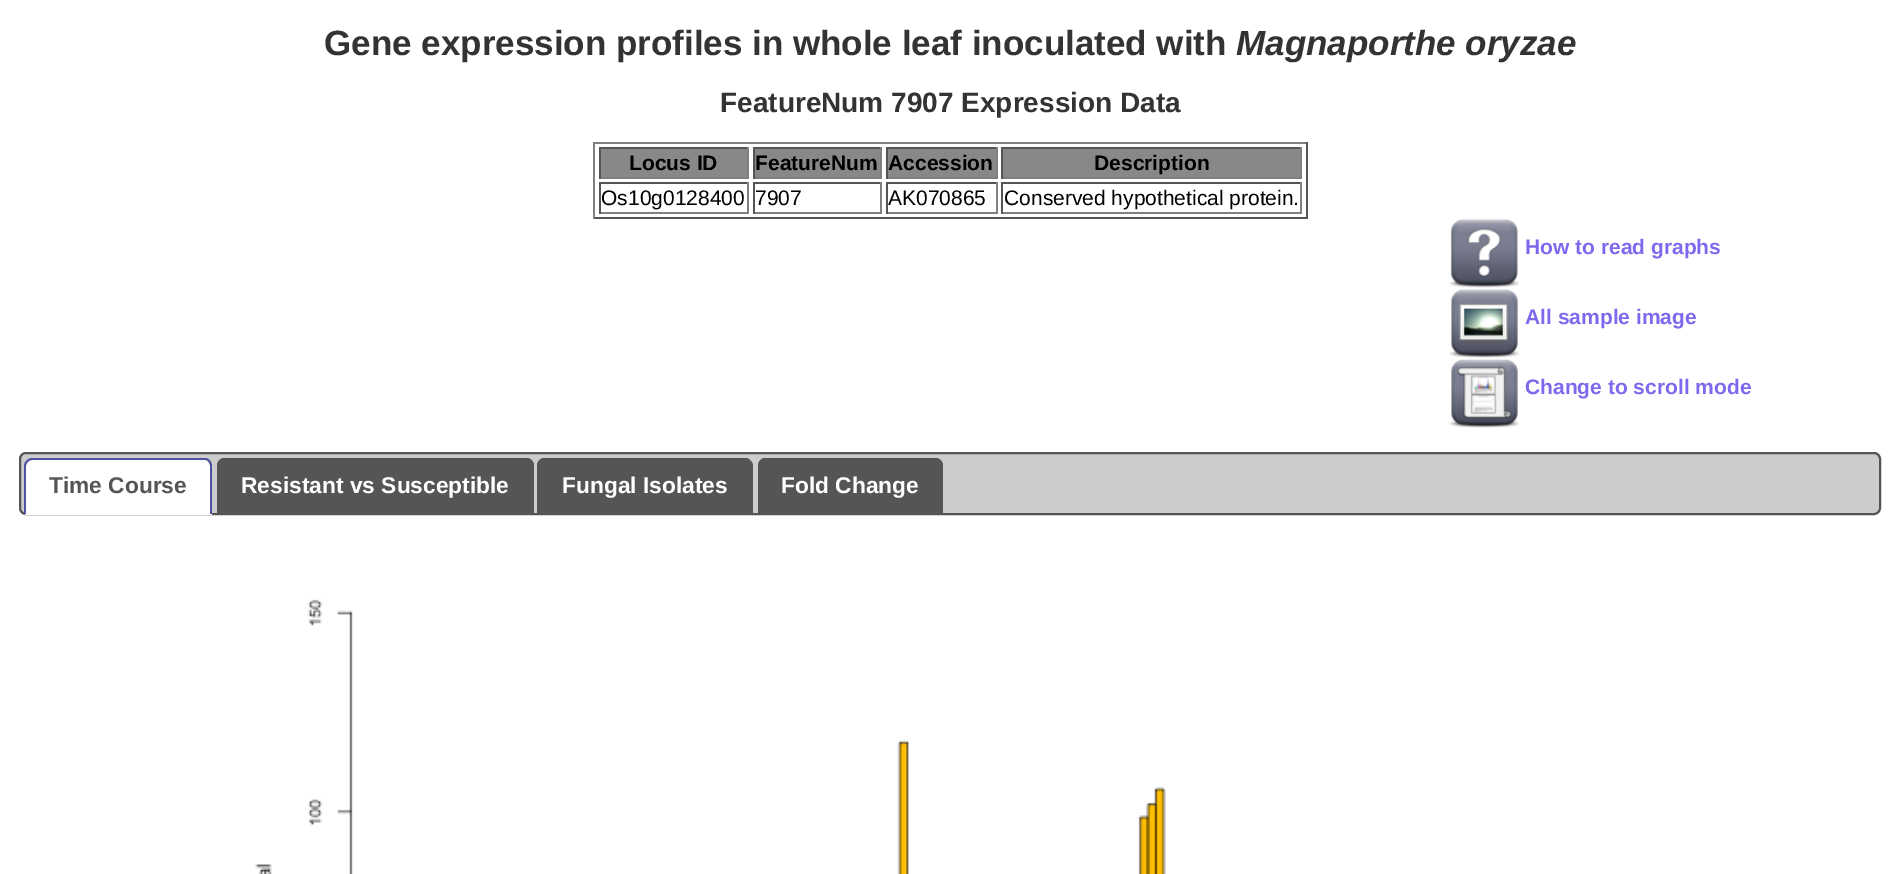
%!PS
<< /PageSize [1900 874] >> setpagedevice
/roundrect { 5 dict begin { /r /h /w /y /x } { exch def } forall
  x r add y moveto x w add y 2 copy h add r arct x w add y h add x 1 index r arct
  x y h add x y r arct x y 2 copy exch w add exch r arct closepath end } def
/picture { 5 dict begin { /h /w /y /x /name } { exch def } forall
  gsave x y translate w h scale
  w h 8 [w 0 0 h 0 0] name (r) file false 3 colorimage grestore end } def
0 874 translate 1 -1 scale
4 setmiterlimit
1 setgray
0 0 1900 874 rectfill
/LiberationSans-Bold [35 0 0 -35 0 0] selectfont
0.2 setgray
324 55 moveto (Gene expression profiles in whole leaf inoculated with) show
/LiberationSans-BoldItalic [35 0 0 -35 0 0] selectfont
1236 55 moveto (Magnaporthe oryzae) show
/LiberationSans-Bold [28 0 0 -28 0 0] selectfont
720 112 moveto (FeatureNum 7907 Expression Data) show
0.502 setgray
593 142 714 2 rectfill
0.333 setgray
1306 142 2 77 rectfill
593 217 714 2 rectfill
0.502 setgray
593 142 2 77 rectfill
0.533 setgray
601 149 146 28 rectfill
0.333 setgray
599 147 150 2 rectfill
0.502 setgray
747 147 2 32 rectfill
599 177 150 2 rectfill
0.333 setgray
599 147 2 32 rectfill
/LiberationSans-Bold [21 0 0 -21 0 0] selectfont
0 setgray
629 170 moveto (Locus ID) show
0.533 setgray
755 149 125 28 rectfill
0.333 setgray
753 147 129 2 rectfill
0.502 setgray
880 147 2 32 rectfill
753 177 129 2 rectfill
0.333 setgray
753 147 2 32 rectfill
0 setgray
755 170 moveto (FeatureNum) show
0.533 setgray
888 149 108 28 rectfill
0.333 setgray
886 147 112 2 rectfill
0.502 setgray
996 147 2 32 rectfill
886 177 112 2 rectfill
0.333 setgray
886 147 2 32 rectfill
0 setgray
888 170 moveto (Accession) show
0.533 setgray
1003 149 297 28 rectfill
0.333 setgray
1001 147 301 2 rectfill
0.502 setgray
1300 147 2 32 rectfill
1001 177 301 2 rectfill
0.333 setgray
1001 147 2 32 rectfill
0 setgray
1094 170 moveto (Description) show
0.333 setgray
599 182 150 2 rectfill
0.502 setgray
747 182 2 32 rectfill
599 212 150 2 rectfill
0.333 setgray
599 182 2 32 rectfill
/LiberationSans-Regular [21 0 0 -21 0 0] selectfont
0 setgray
601 205 moveto (Os10g0128400) show
0.333 setgray
753 182 129 2 rectfill
0.502 setgray
880 182 2 32 rectfill
753 212 129 2 rectfill
0.333 setgray
753 182 2 32 rectfill
0 setgray
755 205 moveto (7907) show
0.333 setgray
886 182 112 2 rectfill
0.502 setgray
996 182 2 32 rectfill
886 212 112 2 rectfill
0.333 setgray
886 182 2 32 rectfill
0 setgray
888 205 moveto (AK070865) show
0.333 setgray
1001 182 301 2 rectfill
0.502 setgray
1300 182 2 32 rectfill
1001 212 301 2 rectfill
0.333 setgray
1001 182 2 32 rectfill
0 setgray
1004 205 moveto (Conserved hypothetical protein.) show
(img1.rgb) 1449 218 70 70 picture
/LiberationSans-Bold [21 0 0 -21 0 0] selectfont
0.494 0.408 0.933 setrgbcolor
1525 254 moveto (How to read graphs) show
(img2.rgb) 1449 289 70 69 picture
1525 324 moveto (All sample image) show
(img3.rgb) 1449 359 70 69 picture
1525 394 moveto (Change to scroll mode) show
0.8 setgray
20 453 1860 61 6 roundrect gsave fill grestore
0.333 setgray
2 setlinewidth
stroke
1 setgray
newpath 32 459 moveto 205 459 lineto 209 459 212 462 212 466 curveto 212 515 lineto 25 515 lineto 25 466 lineto 25 462 28 459 32 459 curveto closepath fill
0.31 0.322 0.624 setrgbcolor
newpath 32 458 moveto 205 458 lineto 209 458 212 462 212 466 curveto 212 514 lineto 24 514 lineto 24 466 lineto 24 462 28 458 32 458 curveto closepath 32 460 moveto 205 460 lineto 208 460 210 463 210 466 curveto 210 514 lineto 26 514 lineto 26 466 lineto 26 463 29 460 32 460 curveto closepath eofill
/LiberationSans-Bold [22.75 0 0 -22.75 0 0] selectfont
0.333 setgray
49 493 moveto (Time Course) show
newpath 224 459 moveto 527 459 lineto 531 459 534 462 534 466 curveto 534 513 lineto 217 513 lineto 217 466 lineto 217 462 220 459 224 459 curveto closepath fill
newpath 224 458 moveto 527 458 lineto 531 458 534 462 534 466 curveto 534 513 lineto 217 513 lineto 217 466 lineto 217 462 220 458 224 458 curveto closepath 224 460 moveto 527 460 lineto 530 460 532 463 532 466 curveto 532 513 lineto 219 513 lineto 219 466 lineto 219 463 221 460 224 460 curveto closepath eofill
1 setgray
241 493 moveto (Resistant vs Susceptible) show
0.333 setgray
newpath 544 459 moveto 746 459 lineto 750 459 753 462 753 466 curveto 753 513 lineto 537 513 lineto 537 466 lineto 537 462 540 459 544 459 curveto closepath fill
newpath 544 458 moveto 746 458 lineto 749 458 752 462 752 466 curveto 752 513 lineto 537 513 lineto 537 466 lineto 537 462 540 458 544 458 curveto closepath 544 460 moveto 746 460 lineto 748 460 751 463 751 466 curveto 751 513 lineto 539 513 lineto 539 466 lineto 539 463 541 460 544 460 curveto closepath eofill
1 setgray
562 493 moveto (Fungal Isolates) show
0.333 setgray
newpath 765 459 moveto 936 459 lineto 940 459 943 462 943 466 curveto 943 513 lineto 758 513 lineto 758 466 lineto 758 462 761 459 765 459 curveto closepath fill
newpath 765 458 moveto 936 458 lineto 940 458 943 462 943 466 curveto 943 513 lineto 758 513 lineto 758 466 lineto 758 462 761 458 765 458 curveto closepath 765 460 moveto 936 460 lineto 939 460 942 463 942 466 curveto 942 513 lineto 760 513 lineto 760 466 lineto 760 463 762 460 765 460 curveto closepath eofill
1 setgray
781 493 moveto (Fold Change) show
(img4.rgb) 255 599 911 275 picture
showpage
